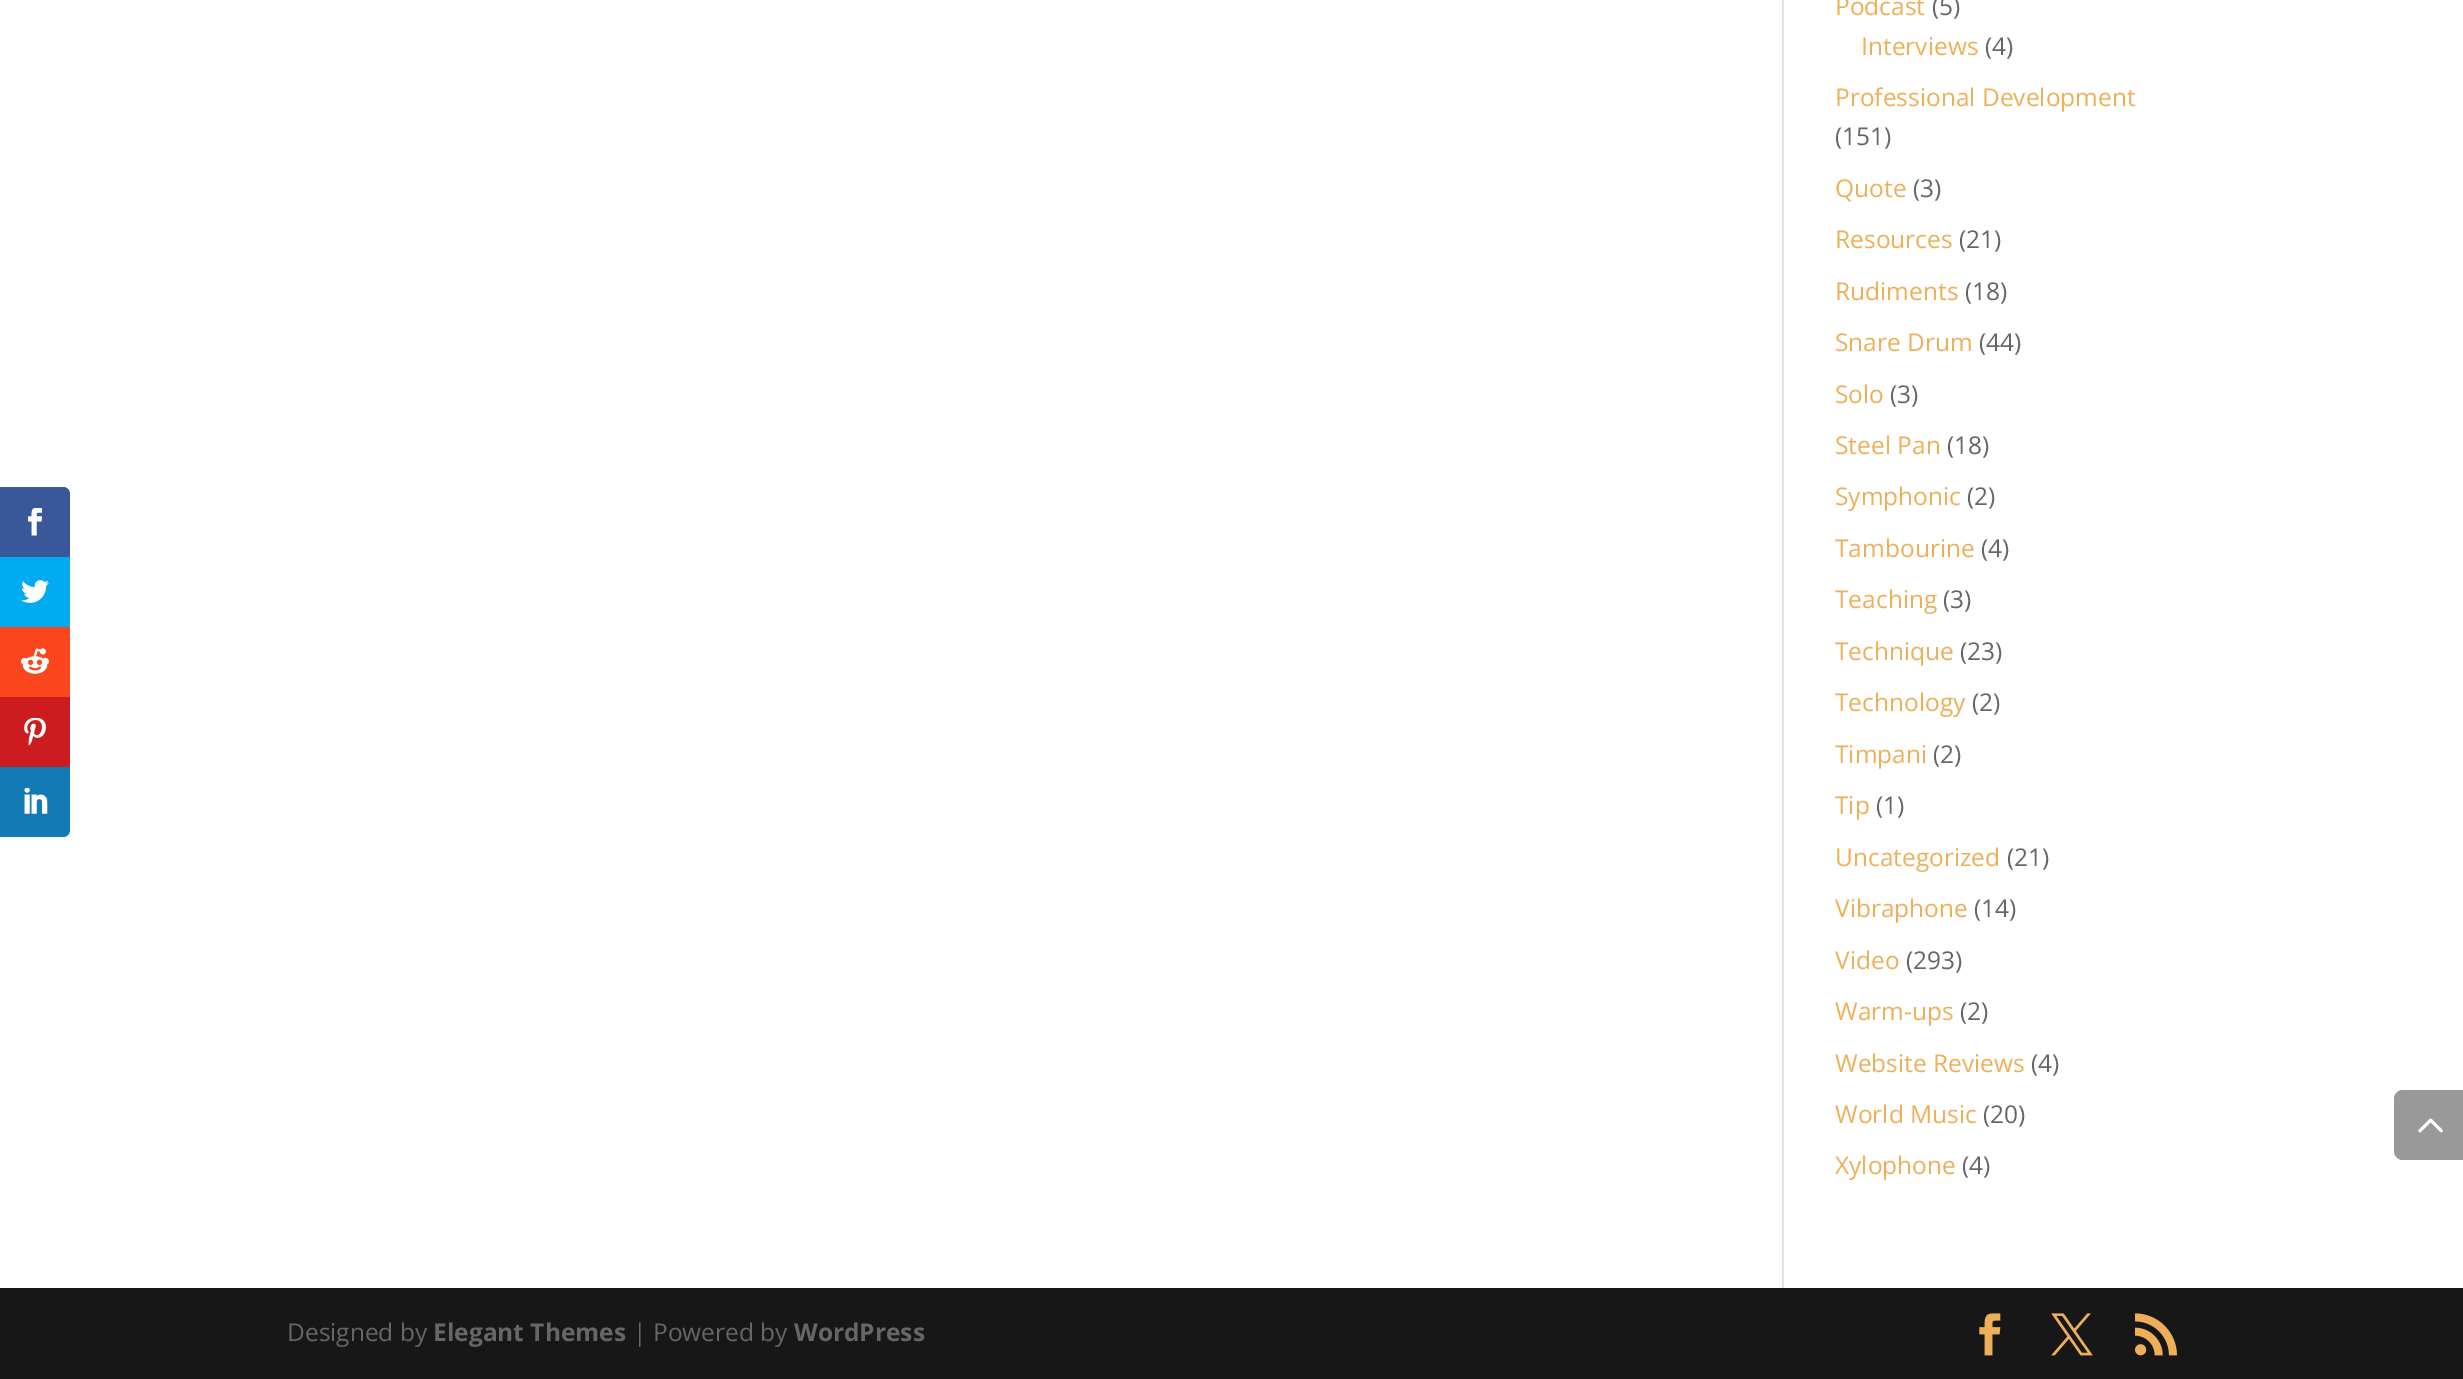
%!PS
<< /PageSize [2463 1379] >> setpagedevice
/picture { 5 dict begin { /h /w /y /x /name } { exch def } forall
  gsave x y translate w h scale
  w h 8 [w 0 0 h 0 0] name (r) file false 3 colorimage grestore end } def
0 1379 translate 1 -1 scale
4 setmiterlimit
1 setgray
0 0 2463 1379 rectfill
0.227 0.341 0.604 setrgbcolor
newpath 0 487 moveto 63 487 lineto 67 487 70 490 70 494 curveto 70 557 lineto 0 557 lineto closepath fill
(img1.rgb) 28 508 15 28 picture
0 0.671 0.941 setrgbcolor
0 557 70 70 rectfill
(img2.rgb) 21 580 28 23 picture
0.988 0.275 0.118 setrgbcolor
0 627 70 70 rectfill
(img3.rgb) 21 648 28 26 picture
0.804 0.11 0.122 setrgbcolor
0 697 70 70 rectfill
(img4.rgb) 24 718 22 28 picture
0.071 0.482 0.714 setrgbcolor
newpath 0 767 moveto 70 767 lineto 70 830 lineto 70 834 67 837 63 837 curveto 0 837 lineto closepath fill
(img5.rgb) 24 788 24 26 picture
0.886 setgray
1782 0 2 1288 rectfill
/OpenSans-Regular [24.5 0 0 -24.5 0 0] selectfont
0.929 0.69 0.349 setrgbcolor
1835 15 moveto (Podcast) show
0.4 setgray
1932 15 moveto (\(5\)) show
0.929 0.69 0.349 setrgbcolor
1861 55 moveto (Interviews) show
0.4 setgray
1985 55 moveto (\(4\)) show
0.929 0.69 0.349 setrgbcolor
1835 106 moveto (Professional Development) show
0.4 setgray
1835 145 moveto (\(151\)) show
0.929 0.69 0.349 setrgbcolor
1835 197 moveto (Quote) show
0.4 setgray
1913 197 moveto (\(3\)) show
0.929 0.69 0.349 setrgbcolor
1835 248 moveto (Resources) show
0.4 setgray
1959 248 moveto (\(21\)) show
0.929 0.69 0.349 setrgbcolor
1835 300 moveto (Rudiments) show
0.4 setgray
1965 300 moveto (\(18\)) show
0.929 0.69 0.349 setrgbcolor
1835 351 moveto (Snare Drum) show
0.4 setgray
1979 351 moveto (\(44\)) show
0.929 0.69 0.349 setrgbcolor
1835 403 moveto (Solo) show
0.4 setgray
1890 403 moveto (\(3\)) show
0.929 0.69 0.349 setrgbcolor
1835 454 moveto (Steel Pan) show
0.4 setgray
1947 454 moveto (\(18\)) show
0.929 0.69 0.349 setrgbcolor
1835 505 moveto (Symphonic) show
0.4 setgray
1967 505 moveto (\(2\)) show
0.929 0.69 0.349 setrgbcolor
1835 557 moveto (Tambourine) show
0.4 setgray
1981 557 moveto (\(4\)) show
0.929 0.69 0.349 setrgbcolor
1835 608 moveto (Teaching) show
0.4 setgray
1943 608 moveto (\(3\)) show
0.929 0.69 0.349 setrgbcolor
1835 660 moveto (Technique) show
0.4 setgray
1960 660 moveto (\(23\)) show
0.929 0.69 0.349 setrgbcolor
1835 711 moveto (Technology) show
0.4 setgray
1972 711 moveto (\(2\)) show
0.929 0.69 0.349 setrgbcolor
1835 763 moveto (Timpani) show
0.4 setgray
1933 763 moveto (\(2\)) show
0.929 0.69 0.349 setrgbcolor
1835 814 moveto (Tip) show
0.4 setgray
1876 814 moveto (\(1\)) show
0.929 0.69 0.349 setrgbcolor
1835 866 moveto (Uncategorized) show
0.4 setgray
2007 866 moveto (\(21\)) show
0.929 0.69 0.349 setrgbcolor
1835 917 moveto (Vibraphone) show
0.4 setgray
1974 917 moveto (\(14\)) show
0.929 0.69 0.349 setrgbcolor
1835 969 moveto (Video) show
0.4 setgray
1906 969 moveto (\(293\)) show
0.929 0.69 0.349 setrgbcolor
1835 1020 moveto (Warm-ups) show
0.4 setgray
1960 1020 moveto (\(2\)) show
0.929 0.69 0.349 setrgbcolor
1835 1072 moveto (Website Reviews) show
0.4 setgray
2031 1072 moveto (\(4\)) show
0.929 0.69 0.349 setrgbcolor
1835 1123 moveto (World Music) show
0.4 setgray
1983 1123 moveto (\(20\)) show
0.929 0.69 0.349 setrgbcolor
1835 1174 moveto (Xylophone) show
0.4 setgray
1962 1174 moveto (\(4\)) show
0.6 setgray
newpath 2403 1090 moveto 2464 1090 lineto 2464 1160 lineto 2403 1160 lineto 2398 1160 2394 1156 2394 1151 curveto 2394 1099 lineto 2394 1094 2398 1090 2403 1090 curveto closepath fill
(img6.rgb) 2418 1118 25 15 picture
0.09 setgray
0 1288 2463 91 rectfill
0.4 setgray
287 1341 moveto (Designed by) show
/OpenSans-Bold [24.5 0 0 -24.5 0 0] selectfont
433 1341 moveto (Elegant Themes) show
/OpenSans-Regular [24.5 0 0 -24.5 0 0] selectfont
633 1341 moveto (| Powered by) show
/OpenSans-Bold [24.5 0 0 -24.5 0 0] selectfont
794 1341 moveto (WordPress) show
(img7.rgb) 1979 1313 22 43 picture
(img8.rgb) 2051 1313 42 43 picture
(img9.rgb) 2135 1313 42 43 picture
showpage
